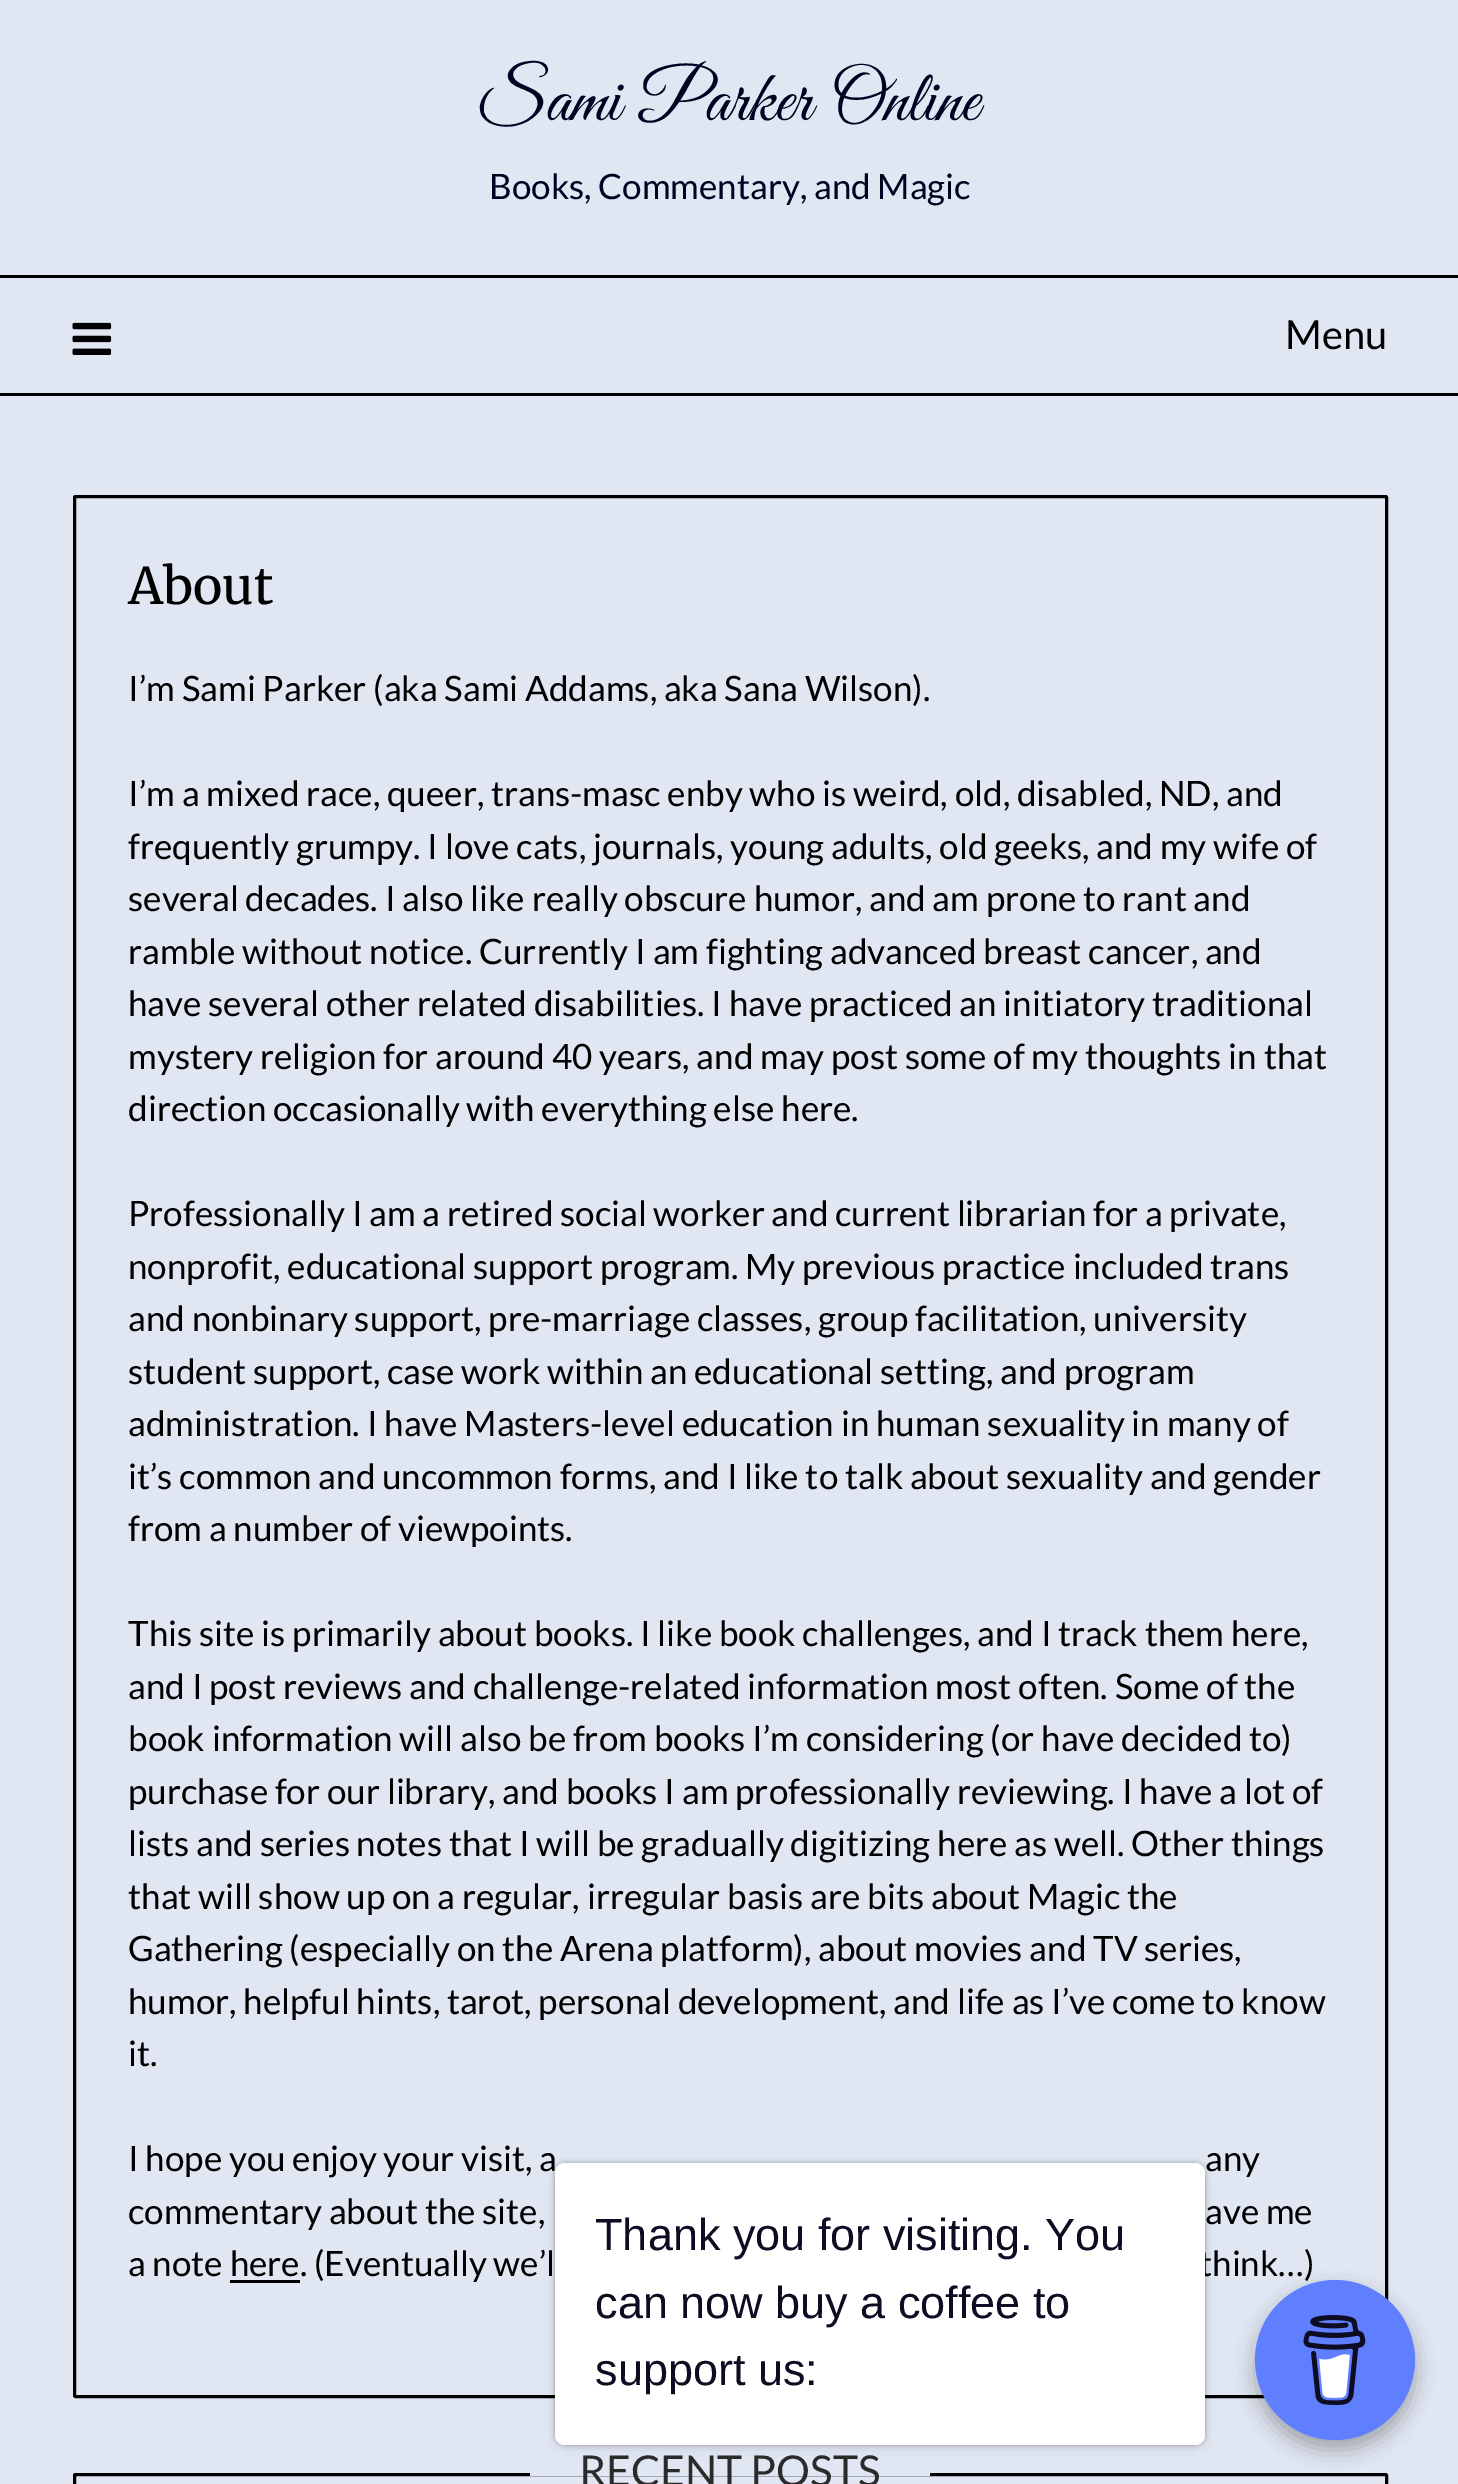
%!PS
<< /PageSize [1458 2484] /PageUsesTransparency true >> setpagedevice
/alpha { dup .setfillconstantalpha .setstrokeconstantalpha } def
/roundrect { 5 dict begin { /r /h /w /y /x } { exch def } forall
  x r add y moveto x w add y 2 copy h add r arct x w add y h add x 1 index r arct
  x y h add x y r arct x y 2 copy exch w add exch r arct closepath end } def
/shadow { 12 dict begin { /a /b /q /h /w /y /x } { exch def } forall gsave /was 0 def
  9 -2 -9 { dup b mul 4 div /e exch def 1 sub .425 mul 2.718 exch exp 1 add a .99 .min exch div /now exch def
    1 1 now sub 1 was sub div sub alpha /was now def
    w h .min e 2 mul add 0 gt { x e sub y e sub w e 2 mul add h e 2 mul add
      q e add b .6 mul add w h .min 2 div e add .min 0 .max roundrect fill } if } for grestore end } def
/picture { 5 dict begin { /h /w /y /x /name } { exch def } forall
  gsave x y translate w h scale
  w h 8 [w 0 0 h 0 0] name (r) file false 3 colorimage grestore end } def
0 .pushpdf14devicefilter
0 2484 translate 1 -1 scale
4 setmiterlimit
0.882 0.906 0.949 setrgbcolor
0 0 1458 2484 rectfill
/GreatVibes-Regular [72.5 0 0 -72.5 0 0] selectfont
0 0.008 0.133 setrgbcolor
480 120 moveto (Sami Parker Online) show
/Lato-Regular [35 0 0 -35 0 0] selectfont
489 199 moveto (Books, Commentary, and Magic) show
0 setgray
0 275 1458 3 rectfill
0 393 1458 3 rectfill
(img1.rgb) 72 322 40 33 picture
/Lato-Regular [40 0 0 -40 0 0] selectfont
1285 349 moveto (Menu) show
3 setlinewidth
74.5 496.5 1312 1900 1 roundrect stroke
/Merriweather-Regular [50 0 0 -50 0 0] selectfont
128 604 moveto (About) show
/Lato-Regular [35 0 0 -35 0 0] selectfont
128 701 moveto (I’m Sami Parker \(aka Sami Addams, aka Sana Wilson\).) show
128 806 moveto (I’m a mixed race, queer, trans-masc enby who is weird, old, disabled, ND, and) show
128 859 moveto (frequently grumpy. I love cats, journals, young adults, old geeks, and my wife of) show
128 911 moveto (several decades. I also like really obscure humor, and am prone to rant and) show
128 964 moveto (ramble without notice. Currently I am fighting advanced breast cancer, and) show
128 1016 moveto (have several other related disabilities. I have practiced an initiatory traditional) show
128 1069 moveto (mystery religion for around 40 years, and may post some of my thoughts in that) show
128 1121 moveto (direction occasionally with everything else here.) show
128 1226 moveto (Professionally I am a retired social worker and current librarian for a private,) show
128 1279 moveto (nonprofit, educational support program. My previous practice included trans) show
128 1331 moveto (and nonbinary support, pre-marriage classes, group facilitation, university) show
128 1384 moveto (student support, case work within an educational setting, and program) show
128 1436 moveto (administration. I have Masters-level education in human sexuality in many of) show
128 1489 moveto (it’s common and uncommon forms, and I like to talk about sexuality and gender) show
128 1541 moveto (from a number of viewpoints.) show
128 1646 moveto (This site is primarily about books. I like book challenges, and I track them here,) show
128 1699 moveto (and I post reviews and challenge-related information most often. Some of the) show
128 1751 moveto (book information will also be from books I’m considering \(or have decided to\)) show
128 1804 moveto (purchase for our library, and books I am professionally reviewing. I have a lot of) show
128 1856 moveto (lists and series notes that I will be gradually digitizing here as well. Other things) show
128 1909 moveto (that will show up on a regular, irregular basis are bits about Magic the) show
128 1961 moveto (Gathering \(especially on the Arena platform\), about movies and TV series,) show
128 2014 moveto (humor, helpful hints, tarot, personal development, and life as I’ve come to know) show
128 2066 moveto (it.) show
128 2171 moveto (I hope you enjoy your visit, a) show
1205 2171 moveto (any) show
128 2224 moveto (commentary about the site,) show
1205 2224 moveto (ave me) show
128 2276 moveto (a note here. \(Eventually we’l) show
1199 2276 moveto (think…\)) show
230 2280 70 3 rectfill
74.5 2474.5 1312 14 1 roundrect stroke
0.882 0.906 0.949 setrgbcolor
530 2473 400 3 rectfill
/Lato-Regular [42.5 0 0 -42.5 0 0] selectfont
0.169 setgray
579 2486 moveto (RECENT POSTS) show
0 setgray
555 2163 650 282 10 2.5 0.15 shadow
555 2168 650 282 10 6 0.05 shadow
555 2163 650 282 10 2.5 0.15 shadow
1 setgray
555 2163 650 282 10 roundrect fill
/LiberationSans-Regular [45 0 0 -45 0 0] selectfont
0.051 0.047 0.133 setrgbcolor
595 2250 moveto (Thank you for visiting. You) show
595 2318 moveto (can now buy a coffee to) show
595 2385 moveto (support us:) show
0 setgray
1255 2290 160 160 80 10 0.15 shadow
1255 2290 160 160 80 10 0.15 shadow
0.373 0.498 1 setrgbcolor
newpath 1335 2360 80 0 360 arc closepath fill
(img2.rgb) 1303 2315 63 90 picture
.poppdf14devicefilter showpage
